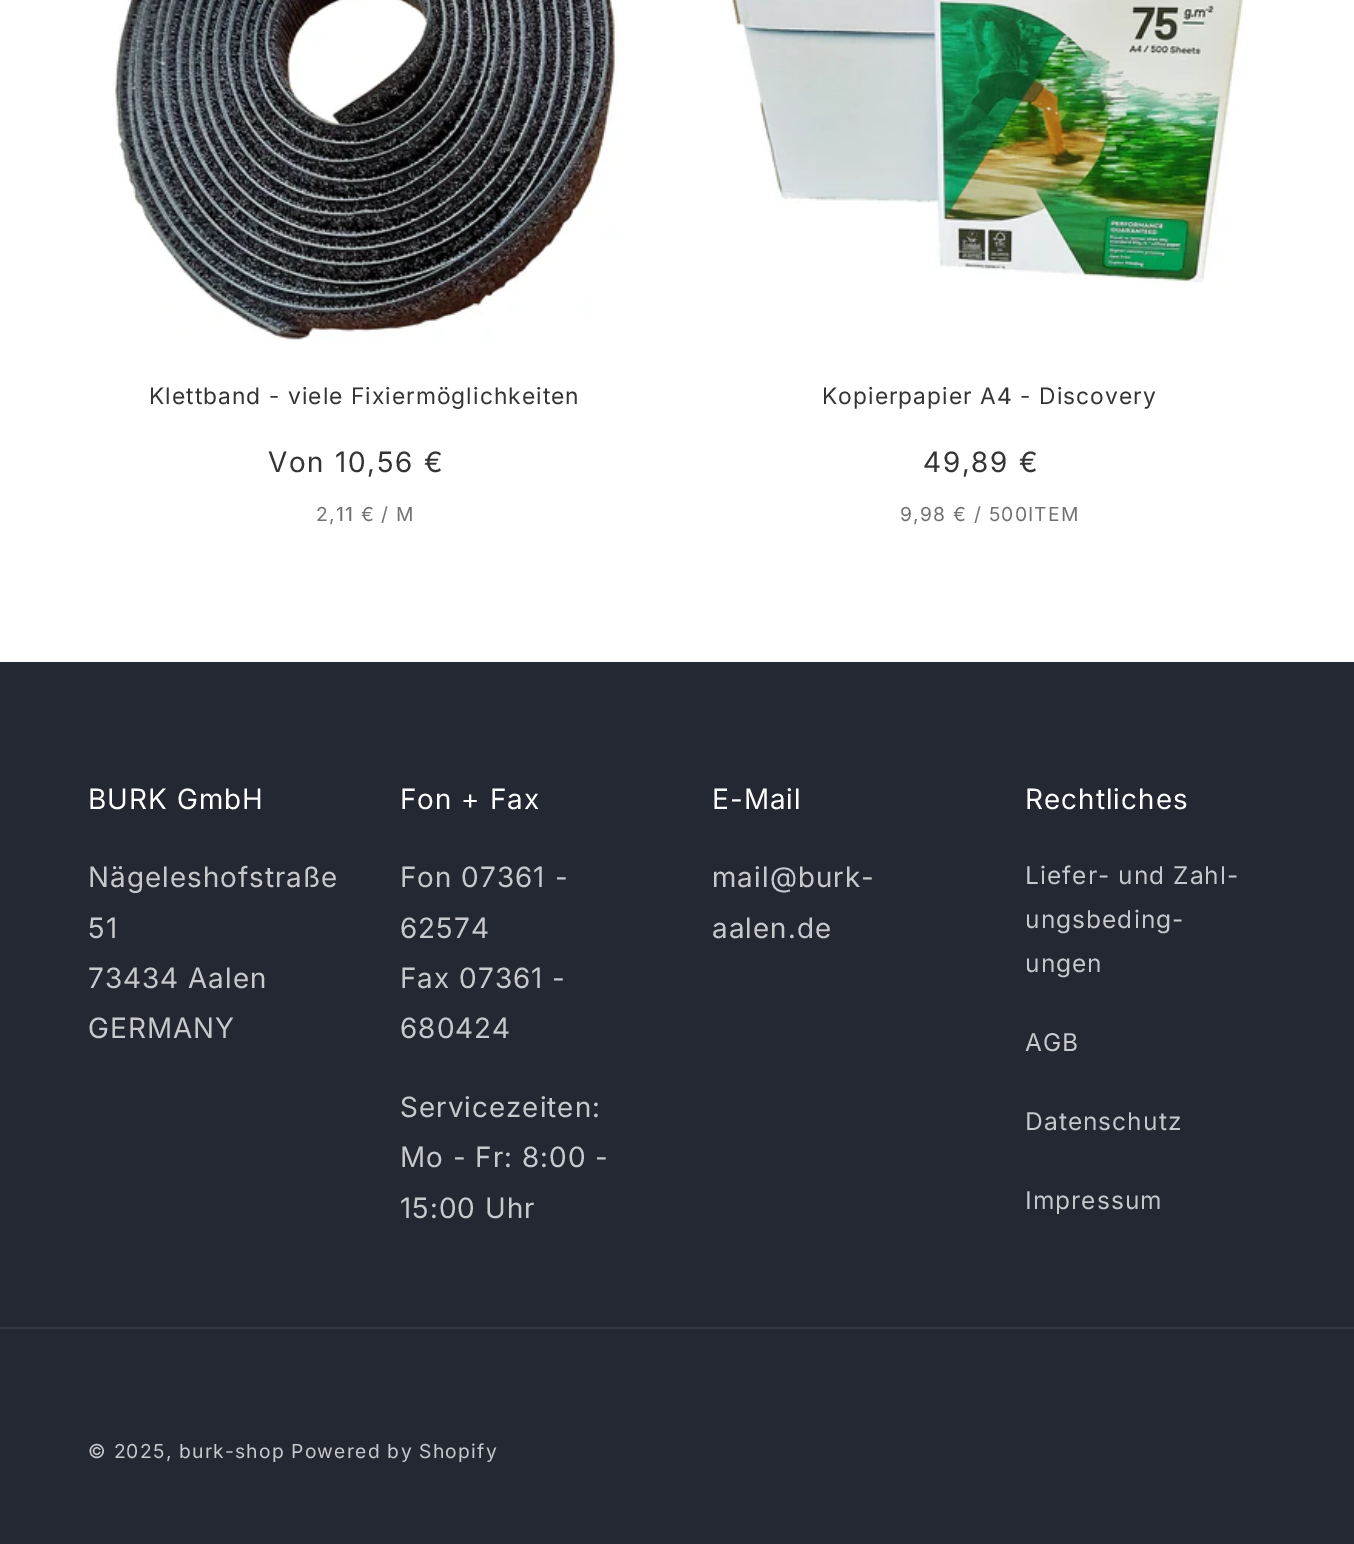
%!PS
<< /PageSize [1354 1544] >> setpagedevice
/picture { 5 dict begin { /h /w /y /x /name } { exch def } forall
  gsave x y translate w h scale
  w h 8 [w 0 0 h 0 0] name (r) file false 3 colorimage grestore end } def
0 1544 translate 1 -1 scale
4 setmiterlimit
1 setgray
0 0 1354 1544 rectfill
(img1.rgb) 112 0 506 340 picture
/Inter-Regular [22.75 0 0 -22.75 0 0] selectfont
0.204 setgray
149 404 moveto 1.05 0 (Klettband - viele Fixiermöglichkeiten) ashow
/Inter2-Regular [28 0 0 -28 0 0] selectfont
268 472 moveto 1.75 0 (Von 10,56 €) ashow
/Inter-Regular [19.25 0 0 -19.25 0 0] selectfont
0.443 setgray
316 521 moveto 1.25 0 (2,11 € / M) ashow
(img2.rgb) 731 0 513 287 picture
/Inter-Regular [22.75 0 0 -22.75 0 0] selectfont
0.204 setgray
822 404 moveto 1.05 0 (Kopierpapier A4 - Discovery) ashow
/Inter2-Regular [28 0 0 -28 0 0] selectfont
923 472 moveto 1.75 0 (49,89 €) ashow
/Inter-Regular [19.25 0 0 -19.25 0 0] selectfont
0.443 setgray
900 521 moveto 1.25 0 (9,98 € / 500ITEM) ashow
0.141 0.157 0.2 setrgbcolor
0 662 1354 882 rectfill
/Inter2-Regular [28 0 0 -28 0 0] selectfont
1 setgray
88 809 moveto 1.05 0 (BURK GmbH) ashow
0.784 0.788 0.8 setrgbcolor
88 887 moveto 1.05 0 (Nägeleshofstraße) ashow
88 938 moveto 1.05 0 (51) ashow
88 988 moveto 1.05 0 (73434 Aalen) ashow
88 1038 moveto 1.05 0 (GERMANY) ashow
1 setgray
400 809 moveto 1.05 0 (Fon + Fax) ashow
0.784 0.788 0.8 setrgbcolor
400 887 moveto 1.05 0 (Fon 07361 -) ashow
400 938 moveto 1.05 0 (62574) ashow
400 988 moveto 1.05 0 (Fax 07361 -) ashow
400 1038 moveto 1.05 0 (680424) ashow
400 1117 moveto 1.05 0 (Servicezeiten:) ashow
400 1167 moveto 1.05 0 (Mo - Fr: 8:00 -) ashow
400 1218 moveto 1.05 0 (15:00 Uhr) ashow
1 setgray
712 809 moveto 1.05 0 (E-Mail) ashow
0.784 0.788 0.8 setrgbcolor
712 887 moveto 1.05 0 (mail@burk-) ashow
712 938 moveto 1.05 0 (aalen.de) ashow
1 setgray
1025 809 moveto 1.05 0 (Rechtliches) ashow
/Inter-Regular [24.5 0 0 -24.5 0 0] selectfont
0.784 0.788 0.8 setrgbcolor
1025 884 moveto 1.05 0 (Liefer- und Zahl-) ashow
1025 928 moveto 1.05 0 (ungsbeding-) ashow
1025 972 moveto 1.05 0 (ungen) ashow
1025 1051 moveto 1.05 0 (AGB) ashow
1025 1130 moveto 1.05 0 (Datenschutz) ashow
1025 1209 moveto 1.05 0 (Impressum) ashow
0.212 0.224 0.263 setrgbcolor
0 1327 1354 2 rectfill
/Inter-Regular [19.25 0 0 -19.25 0 0] selectfont
0.784 0.788 0.8 setrgbcolor
88 1458 moveto 1.25 0 (© 2025, burk-shop) ashow
291 1458 moveto 1.25 0 (Powered by Shopify) ashow
showpage
